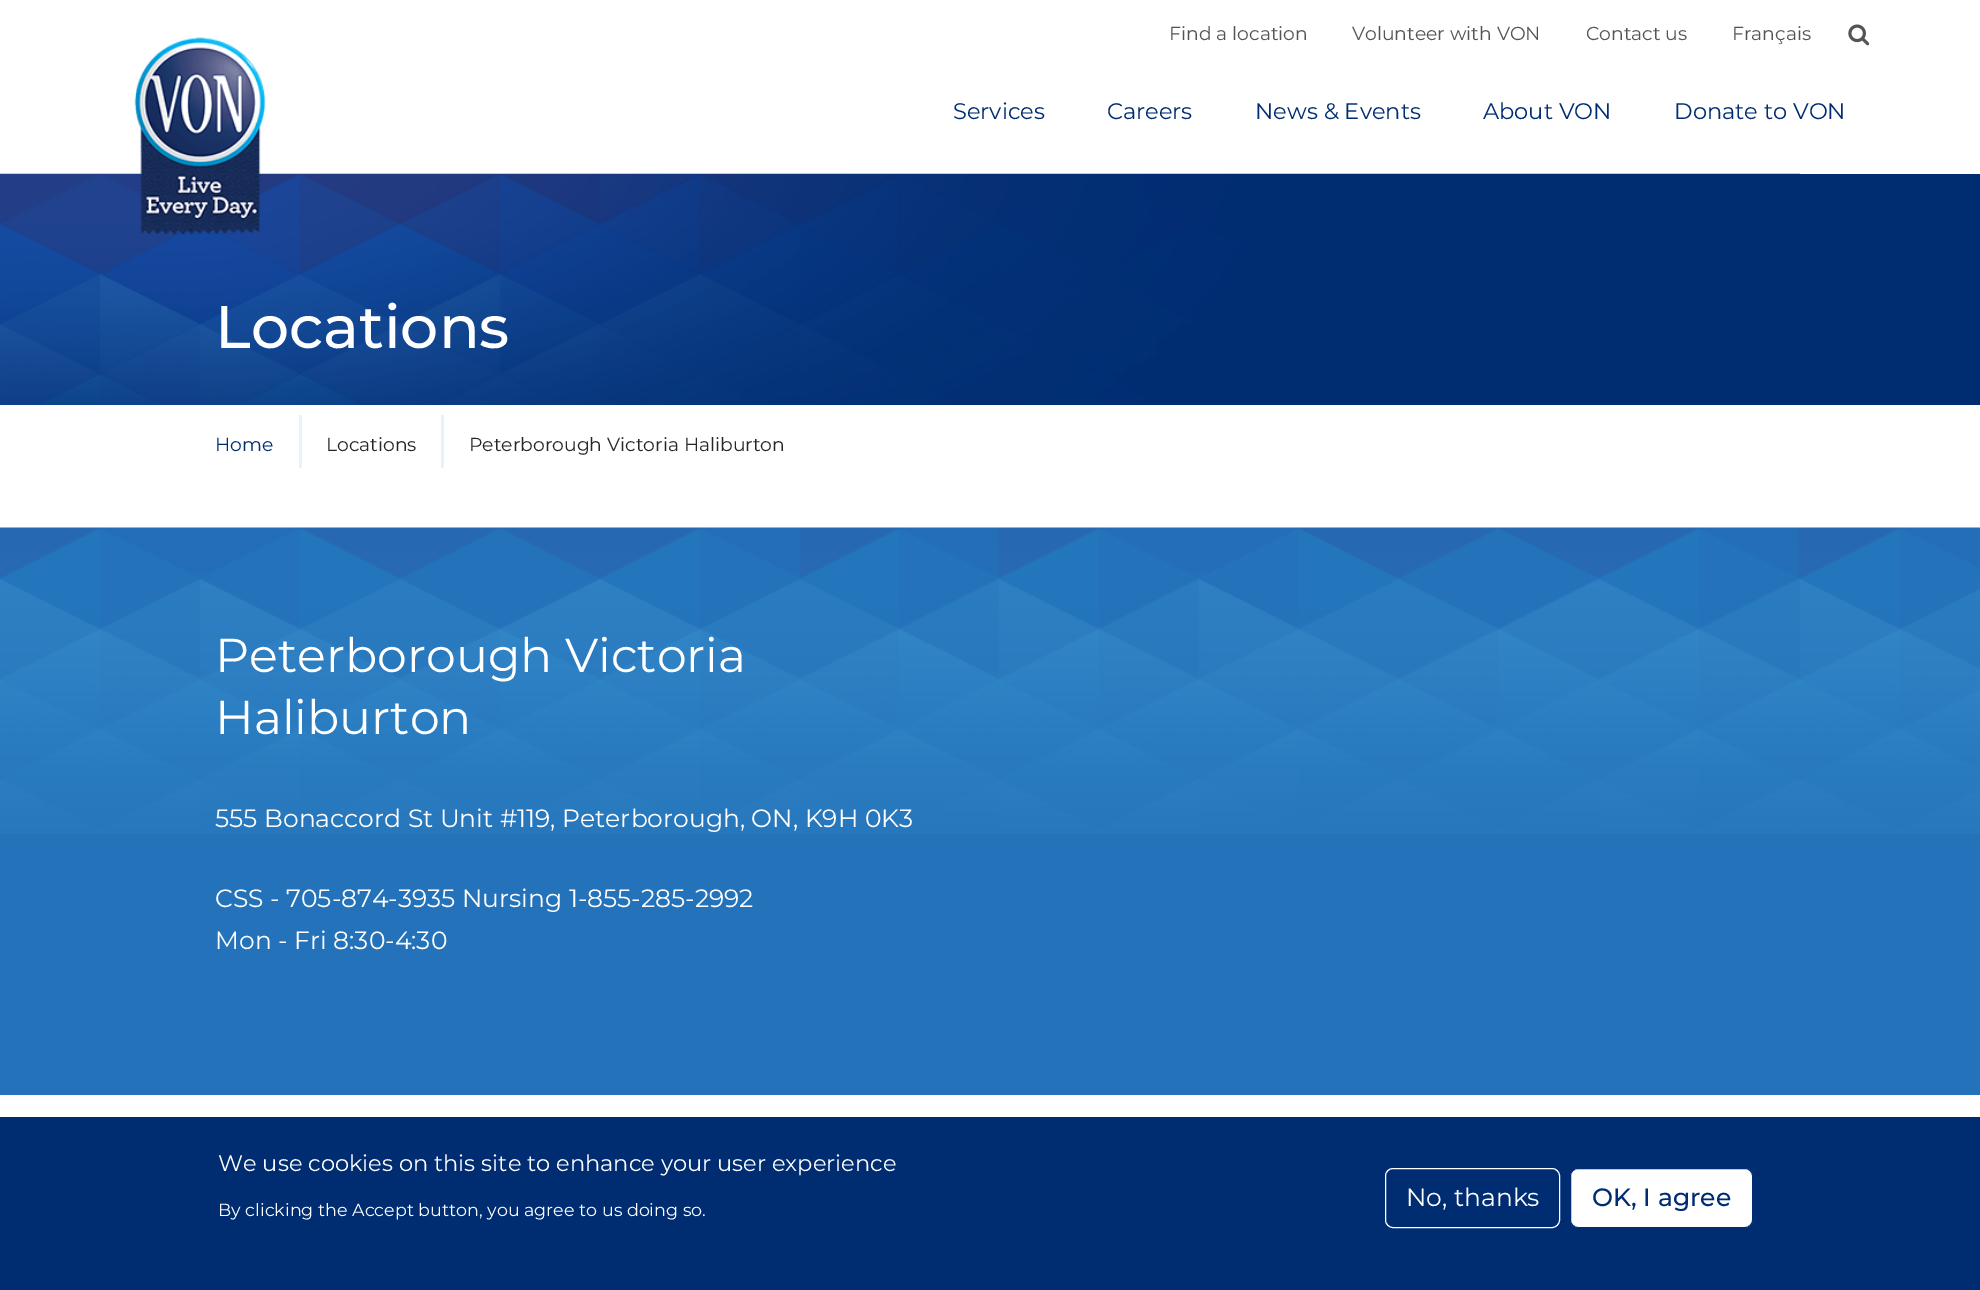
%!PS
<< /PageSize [1980 1290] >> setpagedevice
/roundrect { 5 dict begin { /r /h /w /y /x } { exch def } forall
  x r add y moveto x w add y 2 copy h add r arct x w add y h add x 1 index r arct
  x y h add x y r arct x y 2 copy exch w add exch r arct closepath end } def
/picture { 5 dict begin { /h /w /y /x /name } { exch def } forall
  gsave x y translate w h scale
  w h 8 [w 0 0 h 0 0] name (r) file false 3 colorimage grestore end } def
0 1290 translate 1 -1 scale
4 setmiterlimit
1 setgray
0 0 1980 1290 rectfill
/Montserrat-Regular [18.75 0 0 -18.75 0 0] selectfont
0.329 setgray
1169 40 moveto (Find a location) show
1352 40 moveto (Volunteer with VON) show
1586 40 moveto (Contact us) show
1732 40 moveto (Français) show
(img1.rgb) 1848 24 22 22 picture
(img3.rgb) 0 173 1800 232 picture
(img2.rgb) 134 37 132 198 picture
/Montserrat-Regular [22.5 0 0 -22.5 0 0] selectfont
0 0.176 0.447 setrgbcolor
953 119 moveto (Services) show
1107 119 moveto (Careers) show
1255 119 moveto (News & Events) show
1483 119 moveto (About VON) show
1674 119 moveto (Donate to VON) show
1800 174 180 231 rectfill
/Montserrat-Medium [60 0 0 -60 0 0] selectfont
1 setgray
215 348 moveto (Locations) show
0.902 0.953 0.984 setrgbcolor
299 415 3 53 rectfill
/Montserrat-Regular [18.75 0 0 -18.75 0 0] selectfont
0 0.176 0.447 setrgbcolor
215 451 moveto (Home) show
0.902 0.953 0.984 setrgbcolor
441 415 3 53 rectfill
0.149 setgray
326 451 moveto (Locations) show
469 451 moveto (Peterborough Victoria Haliburton) show
0.141 0.451 0.729 setrgbcolor
0 834 1980 261 rectfill
(img4.rgb) 0 527 1980 307 picture
/Montserrat-Regular [47.5 0 0 -47.5 0 0] selectfont
1 setgray
215 672 moveto (Peterborough Victoria) show
215 734 moveto (Haliburton) show
/Montserrat-Regular [25 0 0 -25 0 0] selectfont
215 827 moveto (555 Bonaccord St Unit #119, Peterborough, ON, K9H 0K3) show
215 907 moveto (CSS - 705-874-3935 Nursing 1-855-285-2992) show
215 949 moveto (Mon - Fri 8:30-4:30) show
0 0.176 0.447 setrgbcolor
0 1117 1980 173 rectfill
/Montserrat-Regular [22.5 0 0 -22.5 0 0] selectfont
1 setgray
218 1171 moveto (We use cookies on this site to enhance your user experience) show
/Montserrat-Regular [17.5 0 0 -17.5 0 0] selectfont
218 1216 moveto (By clicking the Accept button, you agree to us doing so.) show
1385.5 1168.5 174 59 7.5 roundrect stroke
/Montserrat-Regular [25 0 0 -25 0 0] selectfont
1406 1206 moveto (No, thanks) show
1570.5 1168.5 182 59 7.5 roundrect gsave fill grestore
0 0.176 0.447 setrgbcolor
stroke
/Montserrat-Medium [25 0 0 -25 0 0] selectfont
1592 1206 moveto (OK, I agree) show
showpage
